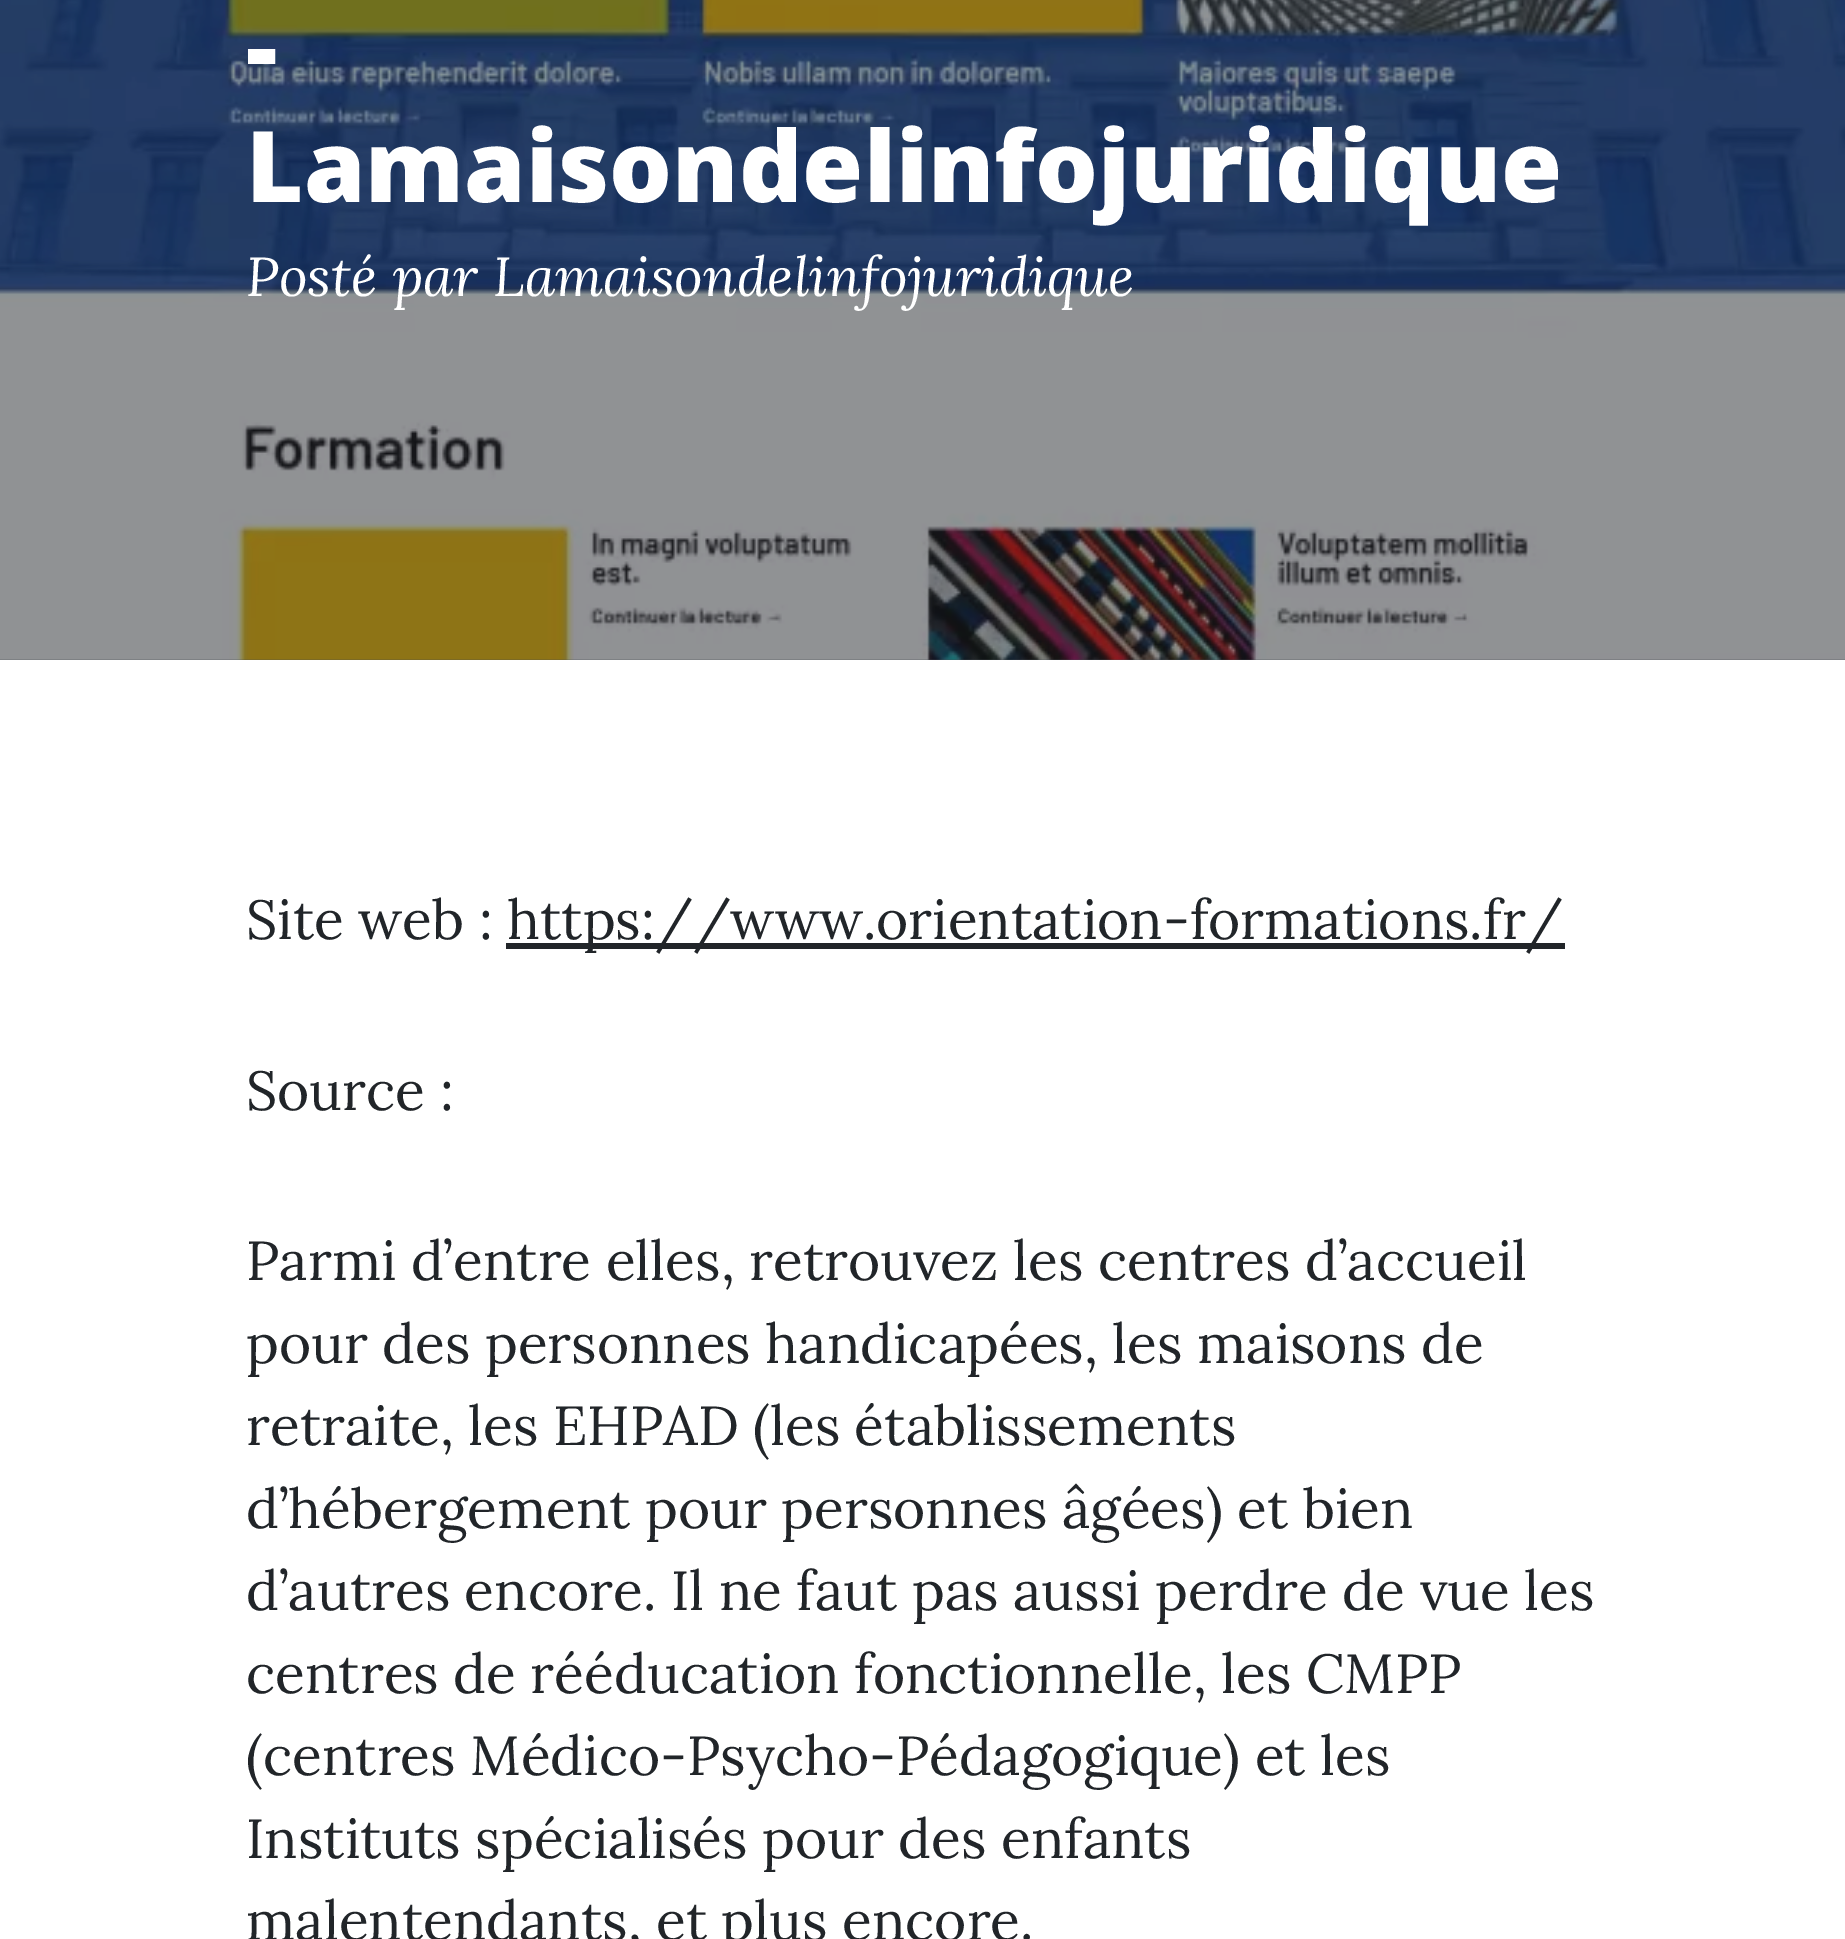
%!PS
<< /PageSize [1845 1939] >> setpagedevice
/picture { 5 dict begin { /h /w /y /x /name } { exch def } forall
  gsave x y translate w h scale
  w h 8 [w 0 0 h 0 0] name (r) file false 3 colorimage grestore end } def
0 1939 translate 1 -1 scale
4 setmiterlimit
1 setgray
0 0 1845 1939 rectfill
(img1.rgb) 0 0 1845 660 picture
/OpenSans-ExtraBold [99 0 0 -99 0 0] selectfont
246 83 moveto (-) show
246 202 moveto (Lamaisondelinfojuridique) show
/Lora-Italic [55 0 0 -55 0 0] selectfont
246 296 moveto (Posté par Lamaisondelinfojuridique) show
/Lora-Regular [55 0 0 -55 0 0] selectfont
0.129 0.145 0.161 setrgbcolor
246 939 moveto (Site web :) show
506 943 1059 6 rectfill
507 939 moveto (https://www.orientation-formations.fr/) show
246 1110 moveto (Source :) show
246 1280 moveto (Parmi d’entre elles, retrouvez les centres d’accueil) show
246 1363 moveto (pour des personnes handicapées, les maisons de) show
246 1445 moveto (retraite, les EHPAD \(les établissements) show
246 1528 moveto (d’hébergement pour personnes âgées\) et bien) show
246 1610 moveto (d’autres encore. Il ne faut pas aussi perdre de vue les) show
246 1693 moveto (centres de rééducation fonctionnelle, les CMPP) show
246 1775 moveto (\(centres Médico-Psycho-Pédagogique\) et les) show
246 1858 moveto (Instituts spécialisés pour des enfants) show
246 1940 moveto (malentendants, et plus encore.) show
showpage
